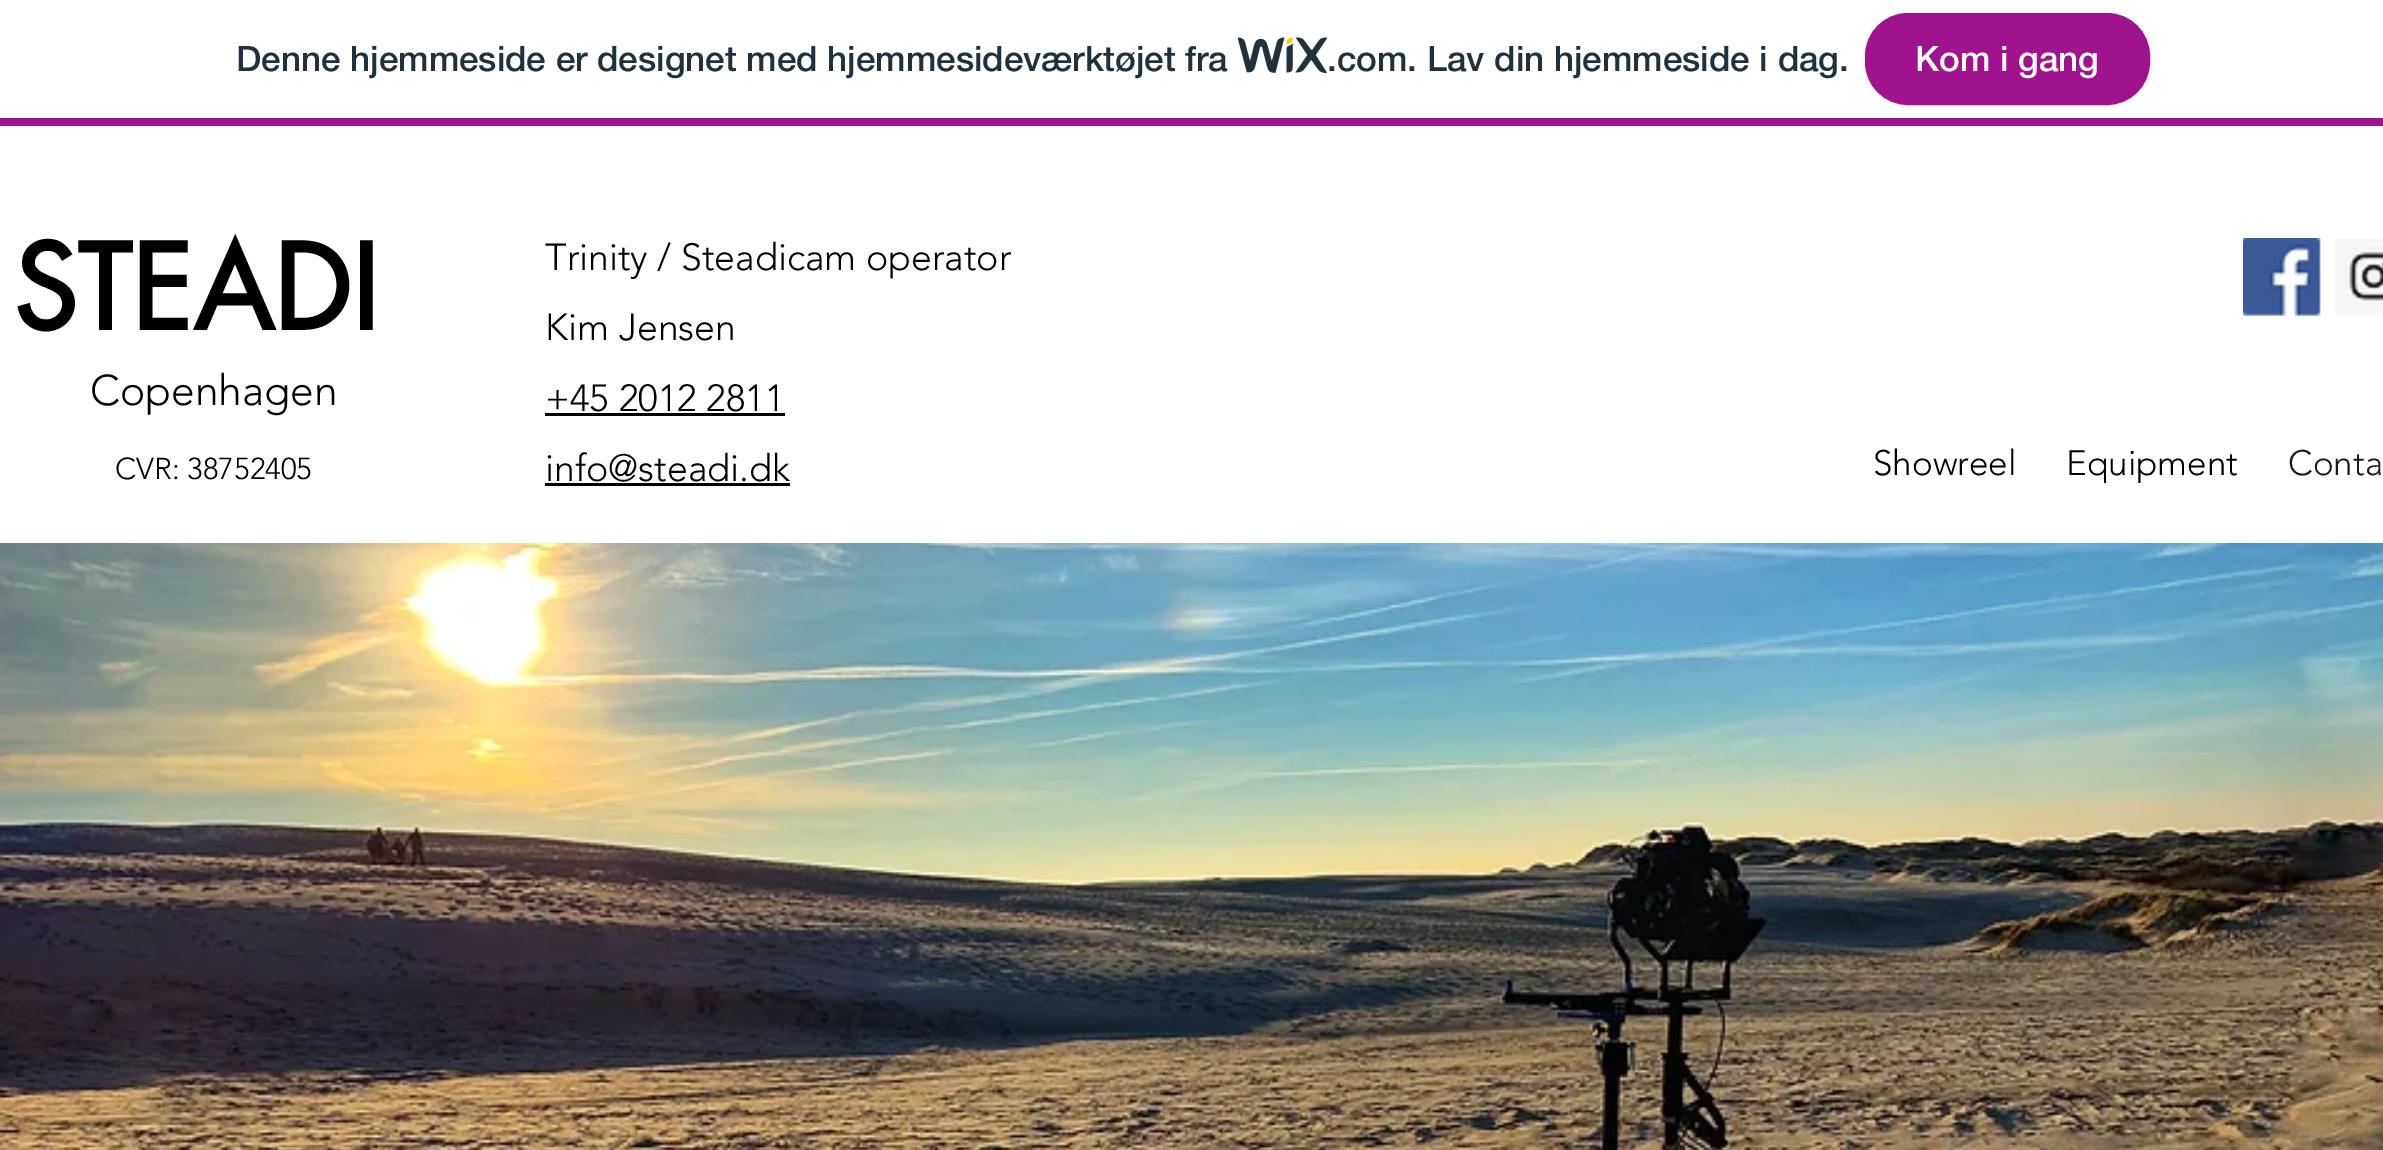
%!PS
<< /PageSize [2383 1150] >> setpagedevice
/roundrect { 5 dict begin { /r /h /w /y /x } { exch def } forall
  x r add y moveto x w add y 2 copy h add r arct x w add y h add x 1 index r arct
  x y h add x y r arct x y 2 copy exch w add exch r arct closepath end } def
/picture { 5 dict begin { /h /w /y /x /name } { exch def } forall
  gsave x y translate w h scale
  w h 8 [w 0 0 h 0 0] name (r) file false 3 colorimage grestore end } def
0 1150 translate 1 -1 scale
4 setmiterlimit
1 setgray
0 0 2383 1150 rectfill
0.627 0.075 0.557 setrgbcolor
0 118 2383 8 rectfill
/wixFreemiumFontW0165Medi-Medium [35 0 0 -35 0 0] selectfont
0.125 0.188 0.235 setrgbcolor
236 71 moveto (Denne hjemmeside er designet med hjemmesideværktøjet fra) show
(img1.rgb) 1238 37 90 36 picture
1327 71 moveto (.com. Lav din hjemmeside i dag.) show
0.627 0.075 0.557 setrgbcolor
1866.5 14.5 282 89 41.5 roundrect gsave fill grestore
3 setlinewidth
stroke
1 setgray
1915 71 moveto (Kom i gang) show
/futura-Bold [115 0 0 -115 0 0] selectfont
0 setgray
13 330 moveto (STEADI) show
/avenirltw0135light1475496-Light [42.5 0 0 -42.5 0 0] selectfont
90 405 moveto (Copenhagen) show
/avenirltw0135light1475496-Light [30 0 0 -30 0 0] selectfont
115 479 moveto (CVR: 38752405) show
/avenirltw0135light1475496-Light [37.5 0 0 -37.5 0 0] selectfont
545 270 moveto (Trinity / Steadicam operator) show
545 340 moveto (Kim Jensen) show
545 411 moveto (+45 2012 2811) show
545 413 240 3 rectfill
545 481 moveto (info@steadi.dk) show
545 483 245 3 rectfill
(img2.rgb) 2243 238 78 78 picture
(img3.rgb) 2335 238 48 78 picture
/avenirltw0135light1475496-Light [35 0 0 -35 0 0] selectfont
1873 475 moveto (Showreel) show
2066 475 moveto (Equipment) show
0.098 setgray
2288 475 moveto (Conta) show
(img4.rgb) 0 543 2383 607 picture
showpage
